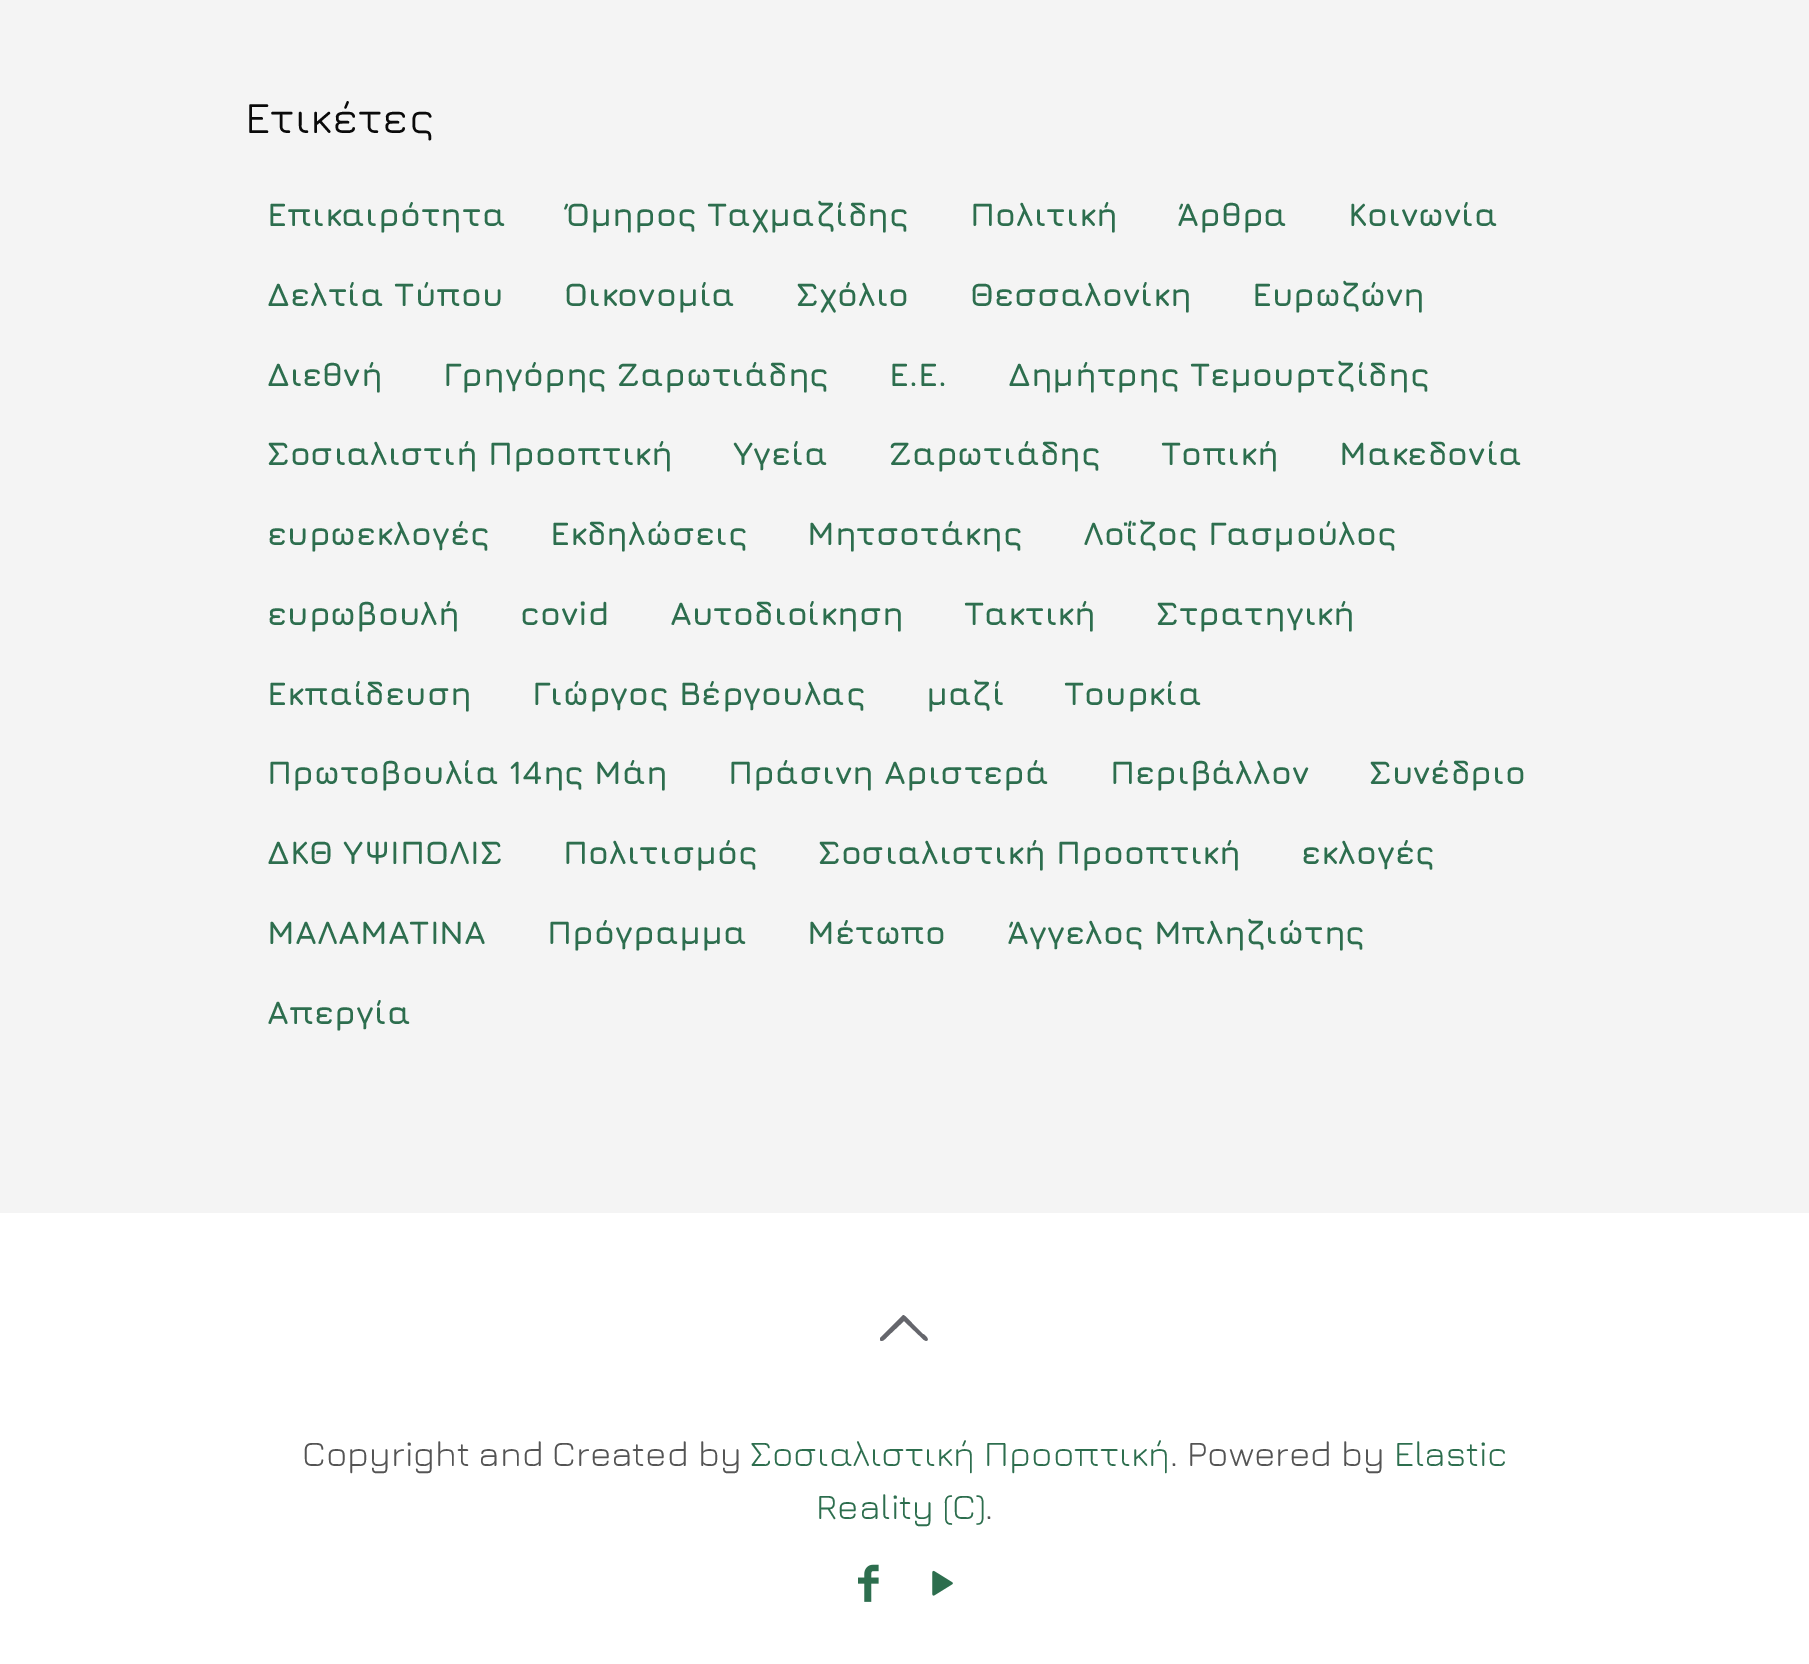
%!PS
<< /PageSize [1809 1664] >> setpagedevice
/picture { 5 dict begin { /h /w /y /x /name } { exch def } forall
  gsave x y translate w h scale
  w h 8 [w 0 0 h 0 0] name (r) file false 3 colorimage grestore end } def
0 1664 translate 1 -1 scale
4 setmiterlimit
0.957 setgray
0 0 1809 1664 rectfill
/Jura-Medium [44 0 0 -44 0 0] selectfont
0.039 setgray
245 133 moveto (Ετικέτες) show
/Jura-Bold [33 0 0 -33 0 0] selectfont
0.176 0.431 0.306 setrgbcolor
267 226 moveto (Επικαιρότητα) show
566 226 moveto (Όμηρος Ταχμαζίδης) show
970 226 moveto (Πολιτική) show
1177 226 moveto (Άρθρα) show
1348 226 moveto (Κοινωνία) show
267 306 moveto (Δελτία Τύπου) show
564 306 moveto (Οικονομία) show
796 306 moveto (Σχόλιο) show
970 306 moveto (Θεσσαλονίκη) show
1252 306 moveto (Ευρωζώνη) show
267 386 moveto (Διεθνή) show
443 386 moveto (Γρηγόρης Ζαρωτιάδης) show
889 386 moveto (Ε.Ε.) show
1008 386 moveto (Δημήτρης Τεμουρτζίδης) show
267 465 moveto (Σοσιαλιστιή Προοπτική) show
733 465 moveto (Υγεία) show
889 465 moveto (Ζαρωτιάδης) show
1161 465 moveto (Τοπική) show
1339 465 moveto (Μακεδονία) show
267 545 moveto (ευρωεκλογές) show
550 545 moveto (Εκδηλώσεις) show
807 545 moveto (Μητσοτάκης) show
1083 545 moveto (Λοΐζος Γασμούλος) show
267 625 moveto (ευρωβουλή) show
520 625 moveto (covid) show
670 625 moveto (Αυτοδιοίκηση) show
964 625 moveto (Τακτική) show
1156 625 moveto (Στρατηγική) show
267 705 moveto (Εκπαίδευση) show
532 705 moveto (Γιώργος Βέργουλας) show
926 705 moveto (μαζί) show
1064 705 moveto (Τουρκία) show
267 784 moveto (Πρωτοβουλία 14ης Μάη) show
728 784 moveto (Πράσινη Αριστερά) show
1110 784 moveto (Περιβάλλον) show
1369 784 moveto (Συνέδριο) show
267 864 moveto (ΔΚΘ ΥΨΙΠΟΛΙΣ) show
563 864 moveto (Πολιτισμός) show
818 864 moveto (Σοσιαλιστική Προοπτική) show
1301 864 moveto (εκλογές) show
267 944 moveto (ΜΑΛΑΜΑΤΙΝΑ) show
547 944 moveto (Πρόγραμμα) show
807 944 moveto (Μέτωπο) show
1007 944 moveto (Άγγελος Μπληζιώτης) show
267 1024 moveto (Απεργία) show
1 setgray
0 1213 1809 451 rectfill
0.396 0.4 0.424 setrgbcolor
newpath 924 1340 moveto 904 1321 lineto 887 1337 lineto 886 1338 882 1343 880 1340 curveto 880 1338 lineto 903 1315 lineto 905 1315 911 1322 912 1323 curveto 923 1334 lineto 924 1334 931 1340 926 1341 curveto closepath fill
/Jura-Regular [35.75 0 0 -35.75 0 0] selectfont
0.329 setgray
302 1466 moveto (Copyright and Created by) show
0.176 0.431 0.306 setrgbcolor
750 1466 moveto (Σοσιαλιστική Προοπτική) show
0.329 setgray
1170 1466 moveto (. Powered by) show
0.176 0.431 0.306 setrgbcolor
1394 1466 moveto (Elastic) show
816 1519 moveto (Reality \(C\)) show
0.329 setgray
985 1519 moveto (.) show
(img1.rgb) 858 1564 21 38 picture
(img2.rgb) 932 1570 21 26 picture
showpage
